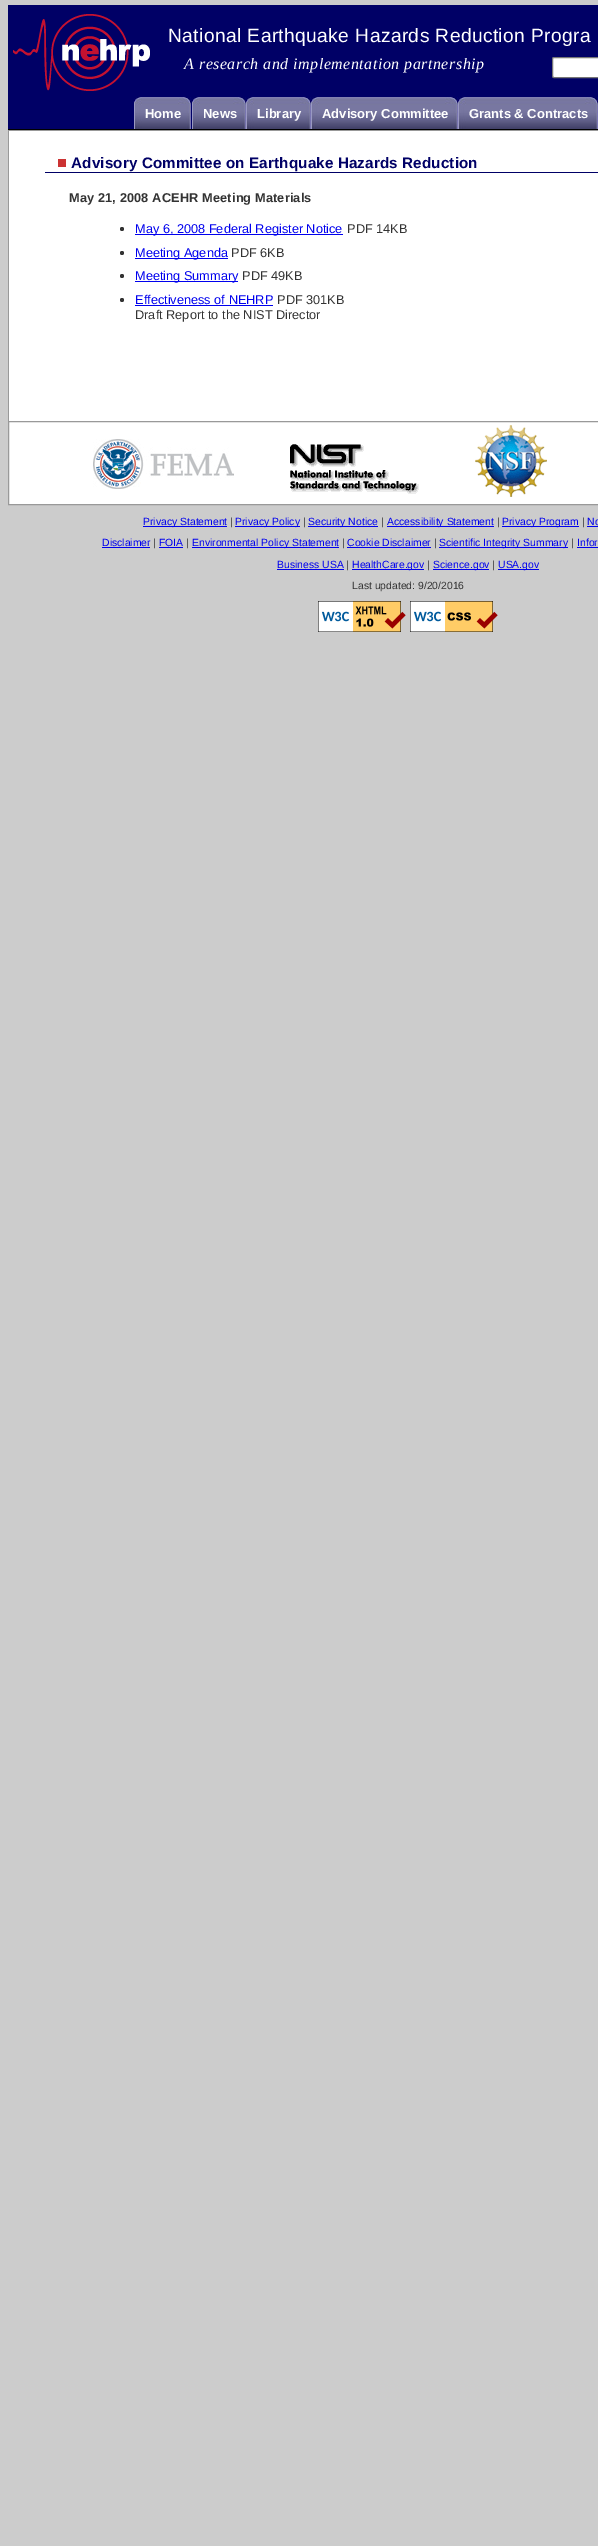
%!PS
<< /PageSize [598 2546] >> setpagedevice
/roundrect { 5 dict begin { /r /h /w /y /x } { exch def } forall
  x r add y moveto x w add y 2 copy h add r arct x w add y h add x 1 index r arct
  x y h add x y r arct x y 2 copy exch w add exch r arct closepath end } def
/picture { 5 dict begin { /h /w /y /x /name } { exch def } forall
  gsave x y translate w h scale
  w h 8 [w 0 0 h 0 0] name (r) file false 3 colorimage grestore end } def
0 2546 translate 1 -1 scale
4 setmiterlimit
0.8 setgray
0 0 598 2546 rectfill
1 setgray
9 131 589 290 rectfill
0 0 0.4 setrgbcolor
8 5 590 124 rectfill
0 setgray
8 129 590 1 rectfill
(img1.rgb) 13 14 137 77 picture
/LiberationSans-Regular [19.2 0 0 -19.2 0 0] selectfont
1 setgray
168 42 moveto 0.4 0 (National Earthquake Hazards Reduction Progra) ashow
/LiberationSerif-Italic [16 0 0 -16 0 0] selectfont
184 69 moveto 0.5 0 (A research and implementation partnership) ashow
552.5 57.5 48 20 1.5 roundrect gsave fill grestore
0.463 setgray
stroke
(img2.rgb) 134 97 10 32 picture
(img3.rgb) 144 97 47 32 picture
(img2.rgb) 192 97 10 32 picture
(img4.rgb) 202 97 44 32 picture
(img2.rgb) 246 97 10 32 picture
(img5.rgb) 256 97 55 32 picture
(img2.rgb) 311 97 10 32 picture
(img6.rgb) 321 97 137 32 picture
(img2.rgb) 458 97 10 32 picture
(img7.rgb) 468 97 130 32 picture
/LiberationSans-Bold [13 0 0 -13 0 0] selectfont
1 setgray
145 118 moveto (Home) show
203 118 moveto (News) show
257 118 moveto (Library) show
322 118 moveto (Advisory Committee) show
469 118 moveto (Grants & Contracts) show
0.6 setgray
8 130 590 1 rectfill
8 130 1 291 rectfill
0 0 0.4 setrgbcolor
45 172 553 1 rectfill
0.8 0.2 0.2 setrgbcolor
58 159 8 8 rectfill
/LiberationSans-Bold [15.2 0 0 -15.2 0 0] selectfont
0 0 0.4 setrgbcolor
71 168 moveto 0.15 0 (Advisory Committee on Earthquake Hazards Reduction) ashow
/LiberationSans-Bold [12.75 0 0 -12.75 0 0] selectfont
0.2 setgray
69 202 moveto 0.15 0 (May 21, 2008 ACEHR Meeting Materials) ashow
newpath 122 229 2 0 360 arc closepath fill
0 0 0.933 setrgbcolor
135 234 208 1 rectfill
/LiberationSans-Regular [12.75 0 0 -12.75 0 0] selectfont
135 233 moveto (May 6, 2008 Federal Register Notice) show
0.2 setgray
347 233 moveto (PDF 14KB) show
newpath 122 253 2 0 360 arc closepath fill
0 0 0.933 setrgbcolor
135 258 93 1 rectfill
135 257 moveto (Meeting Agenda) show
0.2 setgray
231 257 moveto (PDF 6KB) show
newpath 122 276 2 0 360 arc closepath fill
0 0 0.933 setrgbcolor
135 281 103 1 rectfill
135 280 moveto (Meeting Summary) show
0.2 setgray
242 280 moveto (PDF 49KB) show
newpath 122 300 2 0 360 arc closepath fill
0 0 0.933 setrgbcolor
135 304 moveto (Effectiveness of NEHRP) show
135 305 138 1 rectfill
0.2 setgray
277 304 moveto (PDF 301KB) show
135 319 moveto (Draft Report to the NIST Director) show
1 setgray
newpath 8.5 421.5 moveto 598.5 421.5 lineto 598.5 504.5 lineto 8.5 504.5 lineto closepath gsave fill grestore
0.6 setgray
stroke
(img8.rgb) 93 439 141 50 picture
(img9.rgb) 290 444 129 50 picture
(img10.rgb) 475 425 72 72 picture
0 0 0.933 setrgbcolor
143 526 84 1 rectfill
/LiberationSans-Regular [10.4 0 0 -10.4 0 0] selectfont
143 525 moveto (Privacy Statement) show
0.2 setgray
230 525 moveto (|) show
0 0 0.933 setrgbcolor
235 526 65 1 rectfill
235 525 moveto (Privacy Policy) show
0.2 setgray
303 525 moveto (|) show
0 0 0.933 setrgbcolor
308 526 70 1 rectfill
308 525 moveto (Security Notice) show
0.2 setgray
381 525 moveto (|) show
0 0 0.933 setrgbcolor
387 526 107 1 rectfill
387 525 moveto (Accessibility Statement) show
0.2 setgray
497 525 moveto (|) show
0 0 0.933 setrgbcolor
502 526 77 1 rectfill
502 525 moveto (Privacy Program) show
0.2 setgray
582 525 moveto (|) show
0 0 0.933 setrgbcolor
587 525 moveto (No) show
587 526 11 1 rectfill
102 546 moveto (Disclaimer) show
102 547 48 1 rectfill
0.2 setgray
153 546 moveto (|) show
0 0 0.933 setrgbcolor
159 546 moveto (FOIA) show
159 547 24 1 rectfill
0.2 setgray
186 546 moveto (|) show
0 0 0.933 setrgbcolor
192 547 147 1 rectfill
192 546 moveto (Environmental Policy Statement) show
0.2 setgray
342 546 moveto (|) show
0 0 0.933 setrgbcolor
347 546 moveto (Cookie Disclaimer) show
347 547 84 1 rectfill
0.2 setgray
434 546 moveto (|) show
0 0 0.933 setrgbcolor
439 547 129 1 rectfill
439 546 moveto (Scientific Integrity Summary) show
0.2 setgray
571 546 moveto (|) show
0 0 0.933 setrgbcolor
577 546 moveto (Infor) show
577 547 21 1 rectfill
277 568 moveto (Business USA) show
277 569 67 1 rectfill
0.2 setgray
346 568 moveto (|) show
0 0 0.933 setrgbcolor
352 569 72 1 rectfill
352 568 moveto (HealthCare.gov) show
0.2 setgray
427 568 moveto (|) show
0 0 0.933 setrgbcolor
433 569 56 1 rectfill
433 568 moveto (Science.gov) show
0.2 setgray
492 568 moveto (|) show
0 0 0.933 setrgbcolor
498 569 41 1 rectfill
498 568 moveto (USA.gov) show
0.2 setgray
352 589 moveto (Last updated: 9/20/2016) show
(img11.rgb) 318 601 88 31 picture
(img12.rgb) 410 601 88 31 picture
showpage
